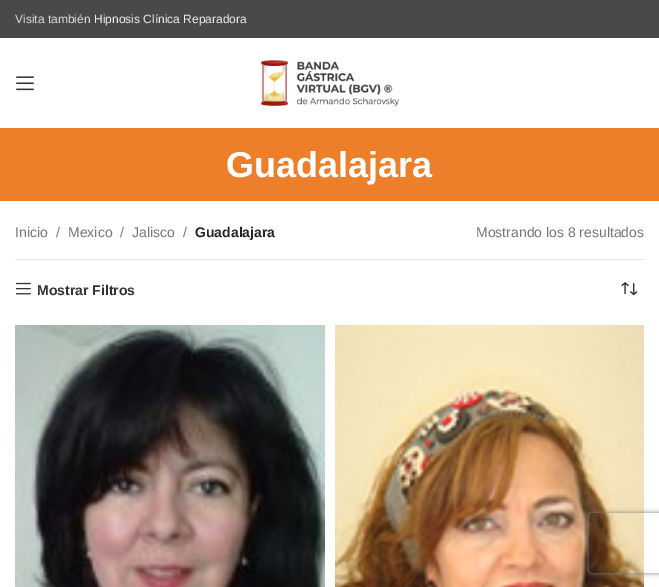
%!PS
<< /PageSize [659 587] /PageUsesTransparency true >> setpagedevice
/alpha { dup .setfillconstantalpha .setstrokeconstantalpha } def
/roundrect { 5 dict begin { /r /h /w /y /x } { exch def } forall
  x r add y moveto x w add y 2 copy h add r arct x w add y h add x 1 index r arct
  x y h add x y r arct x y 2 copy exch w add exch r arct closepath end } def
/shadow { 12 dict begin { /a /b /q /h /w /y /x } { exch def } forall gsave /was 0 def
  9 -2 -9 { dup b mul 4 div /e exch def 1 sub .425 mul 2.718 exch exp 1 add a .99 .min exch div /now exch def
    1 1 now sub 1 was sub div sub alpha /was now def
    w h .min e 2 mul add 0 gt { x e sub y e sub w e 2 mul add h e 2 mul add
      q e add b .6 mul add w h .min 2 div e add .min 0 .max roundrect fill } if } for grestore end } def
/picture { 5 dict begin { /h /w /y /x /name } { exch def } forall
  gsave x y translate w h scale
  w h 8 [w 0 0 h 0 0] name (r) file false 3 colorimage grestore end } def
0 .pushpdf14devicefilter
0 587 translate 1 -1 scale
4 setmiterlimit
1 setgray
0 0 659 587 rectfill
0.286 setgray
0 0 659 38 rectfill
/LiberationSans-Regular [12 0 0 -12 0 0] selectfont
0.859 setgray
15 23 moveto (Visita también) show
0.929 setgray
94 23 moveto (Hipnosis Clínica Reparadora) show
(img1.rgb) 16 76 18 15 picture
(img2.rgb) 261 60 138 46 picture
0.929 0.494 0.165 setrgbcolor
0 128 659 73 rectfill
/LiberationSans-Bold [36 0 0 -36 0 0] selectfont
1 setgray
226 177 moveto (Guadalajara) show
0.894 setgray
15 259 629 1 rectfill
/LiberationSans-Regular [14 0 0 -14 0 0] selectfont
0.463 setgray
15 237 moveto (Inicio) show
56 237 moveto (/) show
68 237 moveto (Mexico) show
120 237 moveto (/) show
132 237 moveto (Jalisco) show
183 237 moveto (/) show
/LiberationSans-Bold [14 0 0 -14 0 0] selectfont
0.141 setgray
195 237 moveto (Guadalajara) show
/LiberationSans-Regular [14 0 0 -14 0 0] selectfont
0.463 setgray
476 237 moveto (Mostrando los 8 resultados) show
(img3.rgb) 16 282 15 13 picture
/LiberationSans-Bold [14 0 0 -14 0 0] selectfont
0.2 setgray
37 295 moveto (Mostrar Filtros) show
(img4.rgb) 621 282 17 14 picture
(img5.rgb) 15 325 310 262 picture
(img6.rgb) 335 325 309 262 picture
gsave
newpath 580 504 moveto 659 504 lineto 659 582 lineto 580 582 lineto closepath 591 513 moveto 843 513 lineto 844 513 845 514 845 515 curveto 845 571 lineto 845 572 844 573 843 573 curveto 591 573 lineto 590 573 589 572 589 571 curveto 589 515 lineto 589 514 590 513 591 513 curveto closepath eoclip newpath
0.502 setgray
589 513 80 60 2 2.5 1 shadow
grestore
.poppdf14devicefilter showpage
